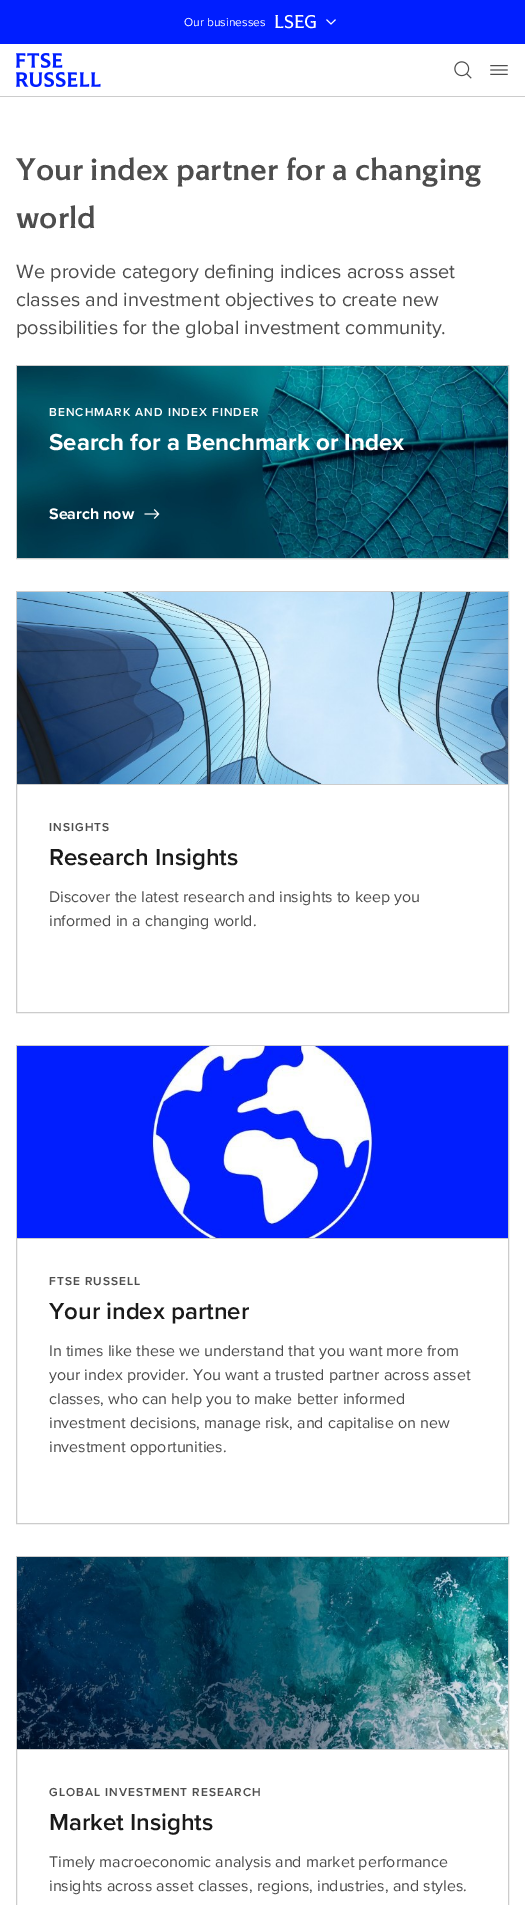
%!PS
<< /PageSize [525 1905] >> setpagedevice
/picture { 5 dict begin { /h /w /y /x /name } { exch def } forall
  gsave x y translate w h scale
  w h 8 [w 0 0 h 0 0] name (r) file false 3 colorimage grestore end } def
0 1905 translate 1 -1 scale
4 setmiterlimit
1 setgray
0 0 525 1905 rectfill
0 0.118 1 setrgbcolor
0 0 525 44 rectfill
/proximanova-Regular [12 0 0 -12 0 0] selectfont
1 setgray
184 26 moveto (Our businesses) show
/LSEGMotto-Regular [19 0 0 -19 0 0] selectfont
274 28 moveto (LSEG) show
(img1.rgb) 326 19 10 6 picture
0.8 setgray
0 96 525 1 rectfill
(img2.rgb) 16 53 85 34 picture
(img3.rgb) 454 61 18 18 picture
(img4.rgb) 490 65 18 10 picture
/LSEGMotto-Medium [32 0 0 -32 0 0] selectfont
0.302 setgray
16 180 moveto (Your index partner for a changing) show
16 228 moveto (world) show
/proximanova-Regular [20 0 0 -20 0 0] selectfont
16 278 moveto (We provide category defining indices across asset) show
16 306 moveto (classes and investment objectives to create new) show
16 334 moveto (possibilities for the global investment community.) show
0.8 setgray
16.5 365.5 492 193 rectstroke
(img5.rgb) 17 366 491 192 picture
/ProximaNova-SemiBold [12 0 0 -12 0 0] selectfont
1 setgray
49 416 moveto 1 0 (BENCHMARK AND INDEX FINDER) ashow
/proximanova-Bold [24 0 0 -24 0 0] selectfont
49 450 moveto (Search for a Benchmark or Index) show
/proximanova-Bold [16 0 0 -16 0 0] selectfont
49 519 moveto (Search now) show
(img6.rgb) 144 509 16 10 picture
0.8 setgray
16.5 591.5 492 421 rectstroke
(img7.rgb) 17 592 491 192 picture
17 784 491 1 rectfill
/ProximaNova-SemiBold [12 0 0 -12 0 0] selectfont
0.302 setgray
49 831 moveto 1 0 (INSIGHTS) ashow
/ProximaNova-SemiBold [24 0 0 -24 0 0] selectfont
0.102 setgray
49 865 moveto (Research Insights) show
/proximanova-Regular [16 0 0 -16 0 0] selectfont
0.302 setgray
49 902 moveto (Discover the latest research and insights to keep you) show
49 926 moveto (informed in a changing world.) show
0.8 setgray
16.5 1045.5 492 478 rectstroke
(img8.rgb) 17 1046 491 192 picture
17 1238 491 1 rectfill
/ProximaNova-SemiBold [12 0 0 -12 0 0] selectfont
0.302 setgray
49 1285 moveto 1 0 (FTSE RUSSELL) ashow
/ProximaNova-SemiBold [24 0 0 -24 0 0] selectfont
0.102 setgray
49 1319 moveto (Your index partner) show
/proximanova-Regular [16 0 0 -16 0 0] selectfont
0.302 setgray
49 1356 moveto (In times like these we understand that you want more from) show
49 1380 moveto (your index provider. You want a trusted partner across asset) show
49 1404 moveto (classes, who can help you to make better informed) show
49 1428 moveto (investment decisions, manage risk, and capitalise on new) show
49 1452 moveto (investment opportunities.) show
0.8 setgray
16.5 1556.5 492 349 rectstroke
(img9.rgb) 17 1557 491 192 picture
17 1749 491 1 rectfill
/ProximaNova-SemiBold [12 0 0 -12 0 0] selectfont
0.302 setgray
49 1796 moveto 1 0 (GLOBAL INVESTMENT RESEARCH) ashow
/ProximaNova-SemiBold [24 0 0 -24 0 0] selectfont
0.102 setgray
49 1830 moveto (Market Insights) show
/proximanova-Regular [16 0 0 -16 0 0] selectfont
0.302 setgray
49 1867 moveto (Timely macroeconomic analysis and market performance) show
49 1891 moveto (insights across asset classes, regions, industries, and styles.) show
showpage
